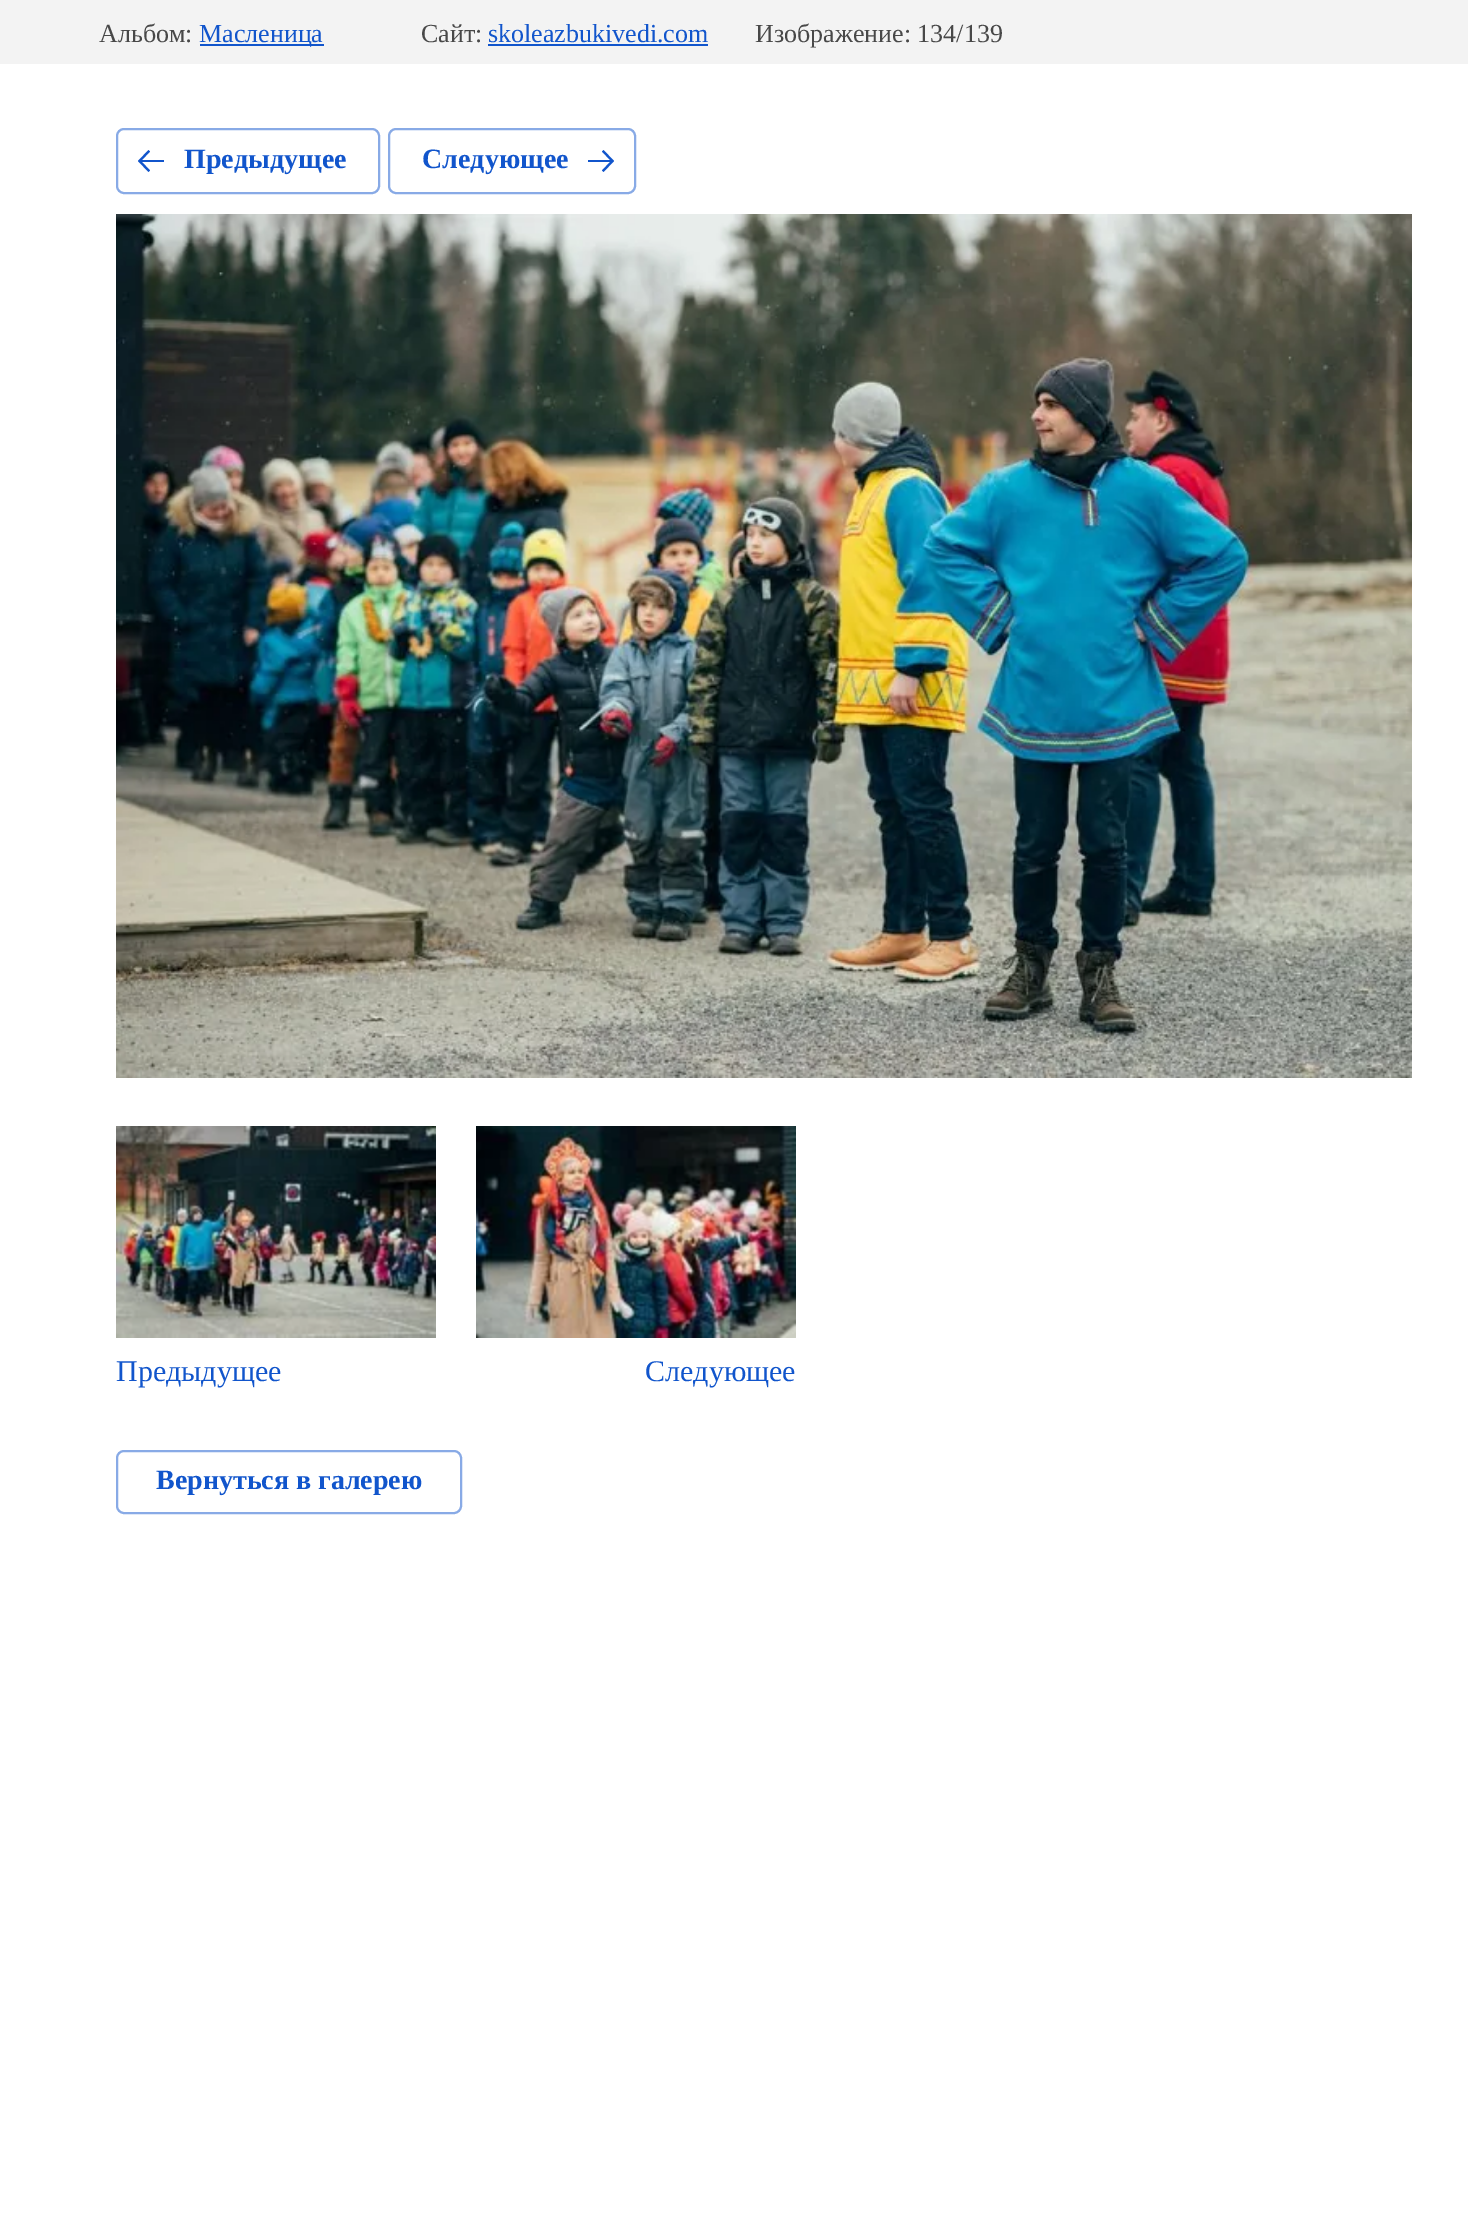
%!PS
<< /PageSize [1468 2229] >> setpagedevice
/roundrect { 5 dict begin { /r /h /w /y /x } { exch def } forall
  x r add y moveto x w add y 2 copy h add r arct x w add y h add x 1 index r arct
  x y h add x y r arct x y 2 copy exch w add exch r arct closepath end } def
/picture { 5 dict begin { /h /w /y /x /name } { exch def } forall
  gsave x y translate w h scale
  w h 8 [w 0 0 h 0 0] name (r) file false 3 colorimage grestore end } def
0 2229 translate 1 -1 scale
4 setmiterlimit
1 setgray
0 0 1468 2229 rectfill
0.953 setgray
0 0 1468 64 rectfill
/LiberationSerif-Regular [26 0 0 -26 0 0] selectfont
0.282 setgray
99 42 moveto (Альбом:) show
0.067 0.333 0.8 setrgbcolor
200 44 124 2 rectfill
199 42 moveto (Масленица) show
0.282 setgray
421 42 moveto (Сайт:) show
0.067 0.333 0.8 setrgbcolor
488 42 moveto (skoleazbukivedi.com) show
488 44 220 2 rectfill
0.282 setgray
755 42 moveto (Изображение: 134/139) show
0.533 0.667 0.902 setrgbcolor
2 setlinewidth
117 129 262 64 7 roundrect stroke
0.067 0.333 0.8 setrgbcolor
newpath 150 151.5 moveto 148.5 150 lineto 138 161 lineto 148.5 172 lineto 150 170.5 lineto 142 162 lineto 164 162 lineto 164 160 lineto 142 160 lineto closepath fill
/LiberationSerif-Bold [28 0 0 -28 0 0] selectfont
184 168 moveto (Предыдущее) show
0.533 0.667 0.902 setrgbcolor
389 129 246 64 7 roundrect stroke
0.067 0.333 0.8 setrgbcolor
422 168 moveto (Следующее) show
newpath 602 151.5 moveto 603.5 150 lineto 614 161 lineto 603.5 172 lineto 602 170.5 lineto 610 162 lineto 588 162 lineto 588 160 lineto 610 160 lineto closepath fill
(img1.rgb) 116 214 1296 864 picture
(img2.rgb) 116 1126 320 212 picture
/LiberationSerif-Regular [30 0 0 -30 0 0] selectfont
116 1381 moveto (Предыдущее) show
(img3.rgb) 476 1126 320 212 picture
645 1381 moveto (Следующее) show
0.533 0.667 0.902 setrgbcolor
117 1451 344 62 7 roundrect stroke
/LiberationSerif-Bold [28 0 0 -28 0 0] selectfont
0.067 0.333 0.8 setrgbcolor
156 1489 moveto (Вернуться в галерею) show
showpage
